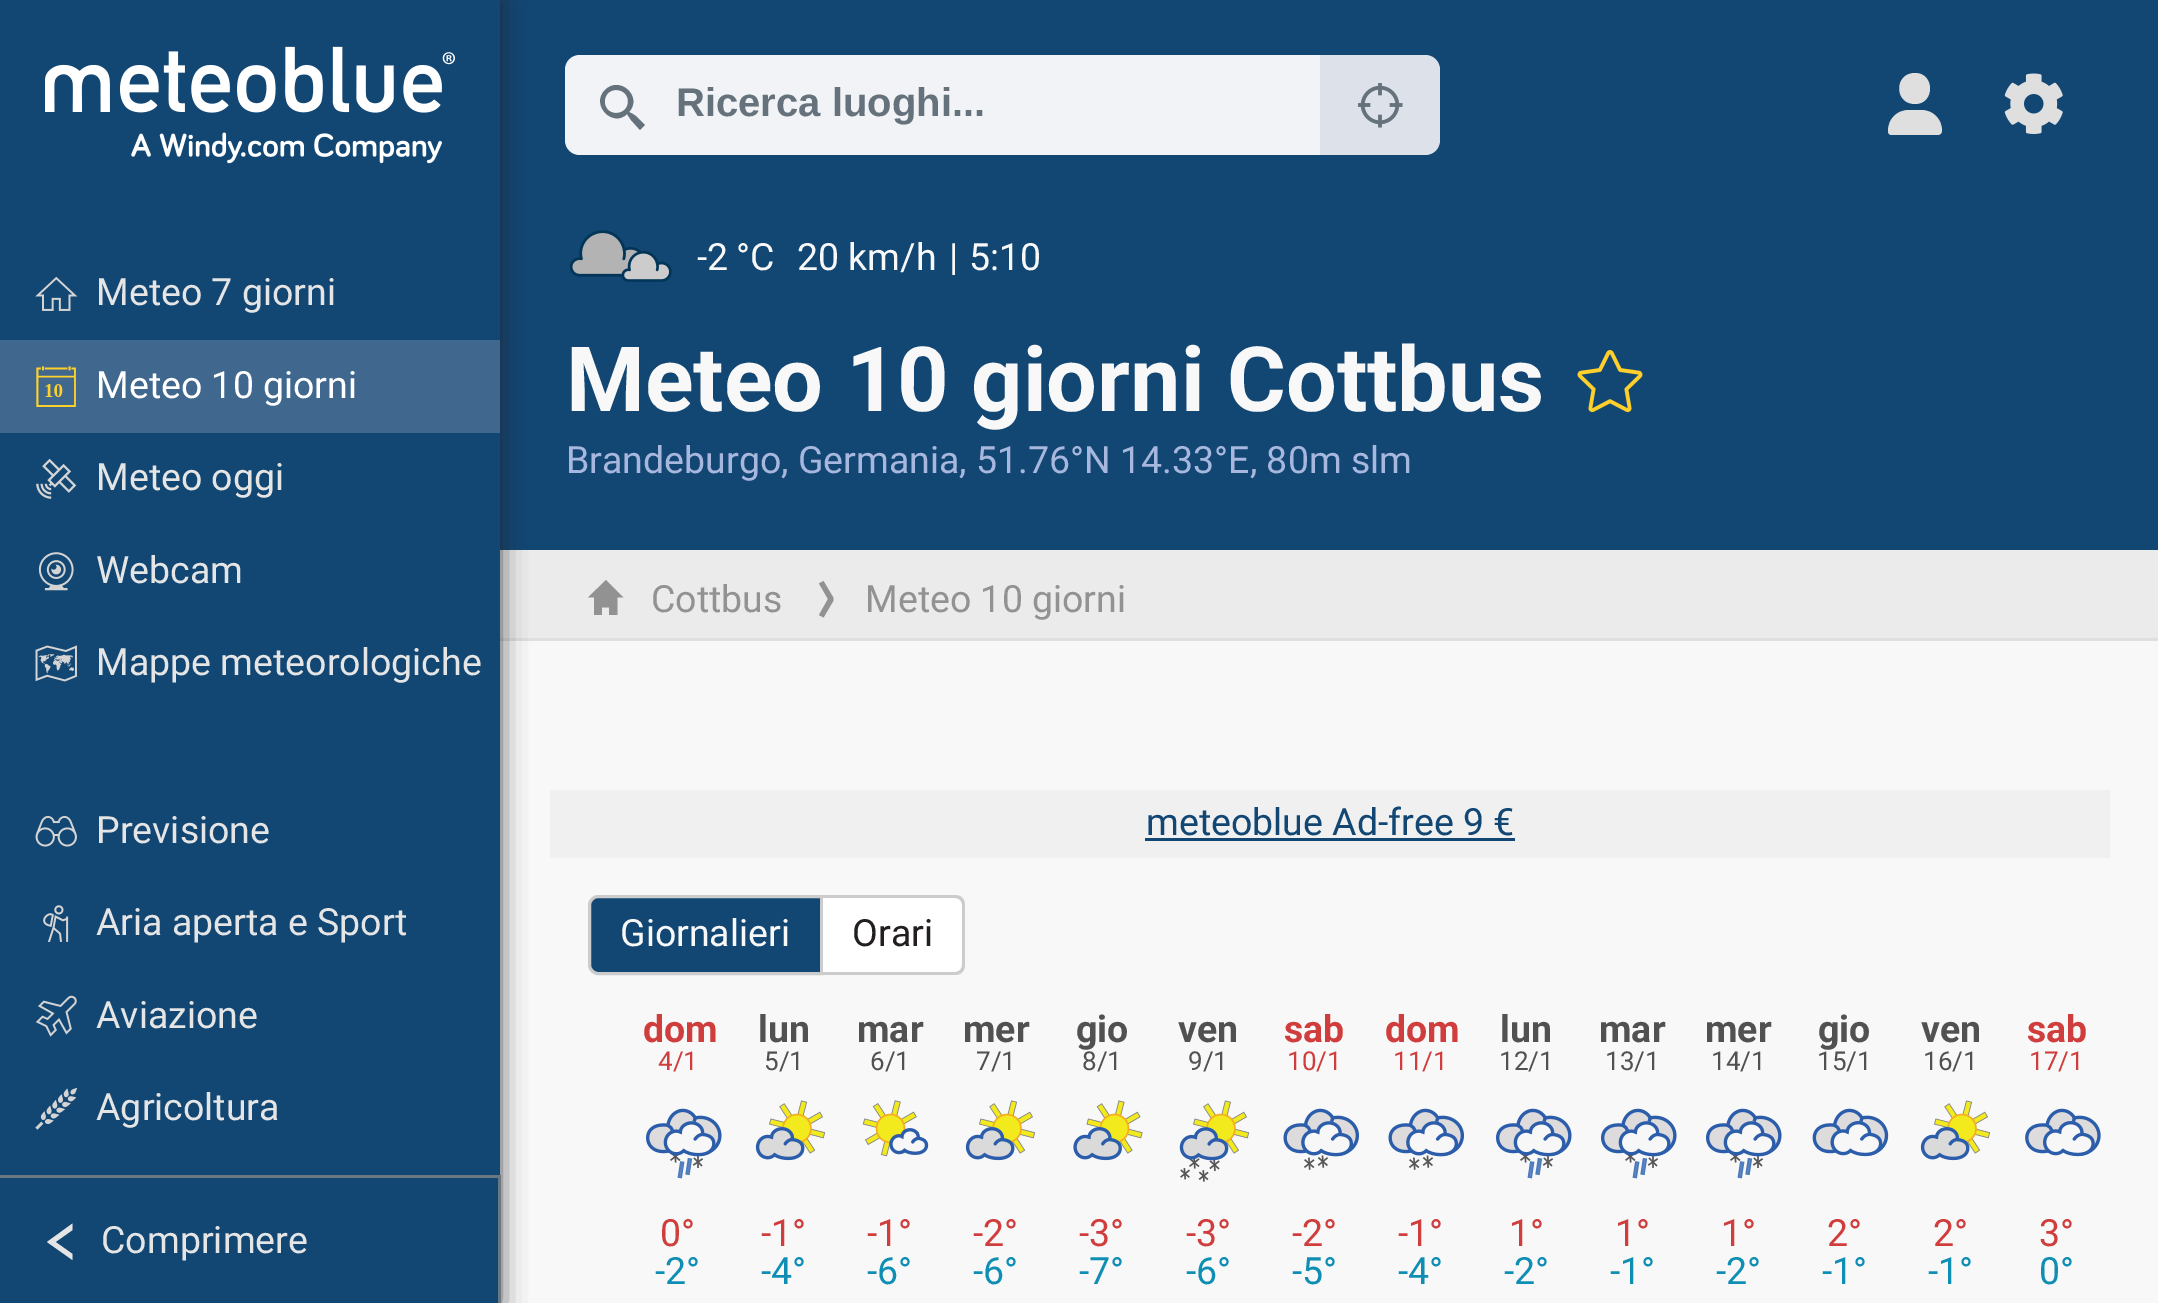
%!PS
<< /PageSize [2158 1303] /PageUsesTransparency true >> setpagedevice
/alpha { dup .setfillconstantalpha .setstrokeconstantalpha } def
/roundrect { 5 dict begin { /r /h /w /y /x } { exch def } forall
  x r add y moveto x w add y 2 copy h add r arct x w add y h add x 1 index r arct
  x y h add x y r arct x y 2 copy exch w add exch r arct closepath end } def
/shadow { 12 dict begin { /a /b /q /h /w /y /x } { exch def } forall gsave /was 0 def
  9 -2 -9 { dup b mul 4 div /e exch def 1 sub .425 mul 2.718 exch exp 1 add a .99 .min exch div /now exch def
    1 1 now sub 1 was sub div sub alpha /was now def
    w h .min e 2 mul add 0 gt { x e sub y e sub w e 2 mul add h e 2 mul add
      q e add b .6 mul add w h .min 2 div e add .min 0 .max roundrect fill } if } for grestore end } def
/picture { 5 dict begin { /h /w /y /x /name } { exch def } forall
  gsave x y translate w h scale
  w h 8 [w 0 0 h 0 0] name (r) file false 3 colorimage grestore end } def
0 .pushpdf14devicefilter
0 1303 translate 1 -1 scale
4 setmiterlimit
0.973 setgray
0 0 2158 1303 rectfill
0.071 0.275 0.451 setrgbcolor
500 0 1658 550 rectfill
0.922 setgray
500 550 1658 88 rectfill
0.875 setgray
500 638 1658 3 rectfill
0.137 0.137 0.176 setrgbcolor
0 0 500 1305 0 12.5 0.8 shadow
0.071 0.275 0.451 setrgbcolor
0 0 500 1175 rectfill
(img1.rgb) 45 46 410 118 picture
(img2.rgb) 35 276 43 35 picture
/Roboto-Regular [37.5 0 0 -37.5 0 0] selectfont
0.898 setgray
96 305 moveto (Meteo 7 giorni) show
0.251 0.404 0.557 setrgbcolor
0 340 500 93 rectfill
(img3.rgb) 36 366 40 41 picture
1 setgray
96 398 moveto (Meteo 10 giorni) show
(img4.rgb) 36 458 41 41 picture
0.898 setgray
96 490 moveto (Meteo oggi) show
(img5.rgb) 38 552 36 39 picture
96 583 moveto (Webcam) show
(img6.rgb) 35 645 42 37 picture
96 675 moveto (Mappe meteorologiche) show
(img7.rgb) 35 816 42 31 picture
96 843 moveto (Previsione) show
(img8.rgb) 43 905 26 37 picture
96 935 moveto (Aria aperta e Sport) show
(img9.rgb) 35 995 42 42 picture
96 1028 moveto (Aviazione) show
(img10.rgb) 35 1088 43 42 picture
96 1120 moveto (Agricoltura) show
0.42 0.471 0.498 setrgbcolor
498 1175 3 128 rectfill
0.071 0.275 0.451 setrgbcolor
0 1178 498 125 rectfill
0.42 0.471 0.498 setrgbcolor
0 1175 498 3 rectfill
0.898 setgray
newpath 47 1242 moveto 72.5 1223.5 lineto 72.5 1230 lineto 55.5 1242 lineto 72.5 1254 lineto 72.5 1260 lineto closepath fill
101 1253 moveto (Comprimere) show
0.945 0.953 0.965 setrgbcolor
newpath 580 55 moveto 1320 55 lineto 1320 155 lineto 580 155 lineto 571.5 155 565 148.5 565 140 curveto 565 70 lineto 565 61.5 571.5 55 580 55 curveto closepath fill
0.396 0.447 0.486 setrgbcolor
newpath 640 120 moveto 636 116 635 115 629 112 curveto 643 97 620 75 605 90 curveto 590 105 613 128 627 114 curveto 631 120 lineto 640 130 lineto 645 125 lineto closepath 616 113 moveto 601 113 601 90 616 90 curveto 632 90 632 113 616 113 curveto closepath fill
/LiberationSans-Bold [40 0 0 -40 0 0] selectfont
676 116 moveto (Ricerca luoghi...) show
0.867 0.886 0.918 setrgbcolor
newpath 1320 55 moveto 1425 55 lineto 1433.5 55 1440 61.5 1440 70 curveto 1440 140 lineto 1440 148.5 1433.5 155 1425 155 curveto 1320 155 lineto closepath fill
(img11.rgb) 1358 83 45 45 picture
0.875 setgray
newpath 1915 104 moveto 1935 104 1935 73 1915 73 curveto 1894 73 1894 104 1915 104 curveto closepath 1921 110 moveto 1909 110 lineto 1897 110 1888 119 1888 131 curveto 1888 133 1889 135 1892 135 curveto 1938 135 lineto 1940 135 1942 133 1942 131 curveto 1942 119 1933 110 1921 110 curveto closepath fill
(img12.rgb) 2004 73 59 61 picture
(img13.rgb) 569 230 103 52 picture
/Roboto-Regular [37.5 0 0 -37.5 0 0] selectfont
0.973 setgray
697 270 moveto (-2 °C) show
797 270 moveto (20 km/h) show
949 270 moveto (|) show
969 270 moveto (5:10) show
/Roboto-Bold [90 0 0 -90 0 0] selectfont
566 411 moveto (Meteo 10 giorni Cottbus) show
(img14.rgb) 1577 350 66 63 picture
/Roboto-Regular [37.5 0 0 -37.5 0 0] selectfont
0.659 0.718 0.867 setrgbcolor
566 473 moveto (Brandeburgo, Germania, 51.76°N 14.33°E, 80m slm) show
0.573 setgray
newpath 606 580 moveto 623.5 597.5 lineto 617.5 597.5 lineto 617.5 615 lineto 609 615 lineto 609 607.5 lineto 602 607.5 lineto 602 615 lineto 594 615 lineto 594 597.5 lineto 588 597.5 lineto closepath fill
651 612 moveto (Cottbus) show
newpath 823.5 581 moveto 833.5 598 lineto 833.5 600.5 lineto 823.5 617.5 lineto 819 615 lineto 828 599 lineto 819 583.5 lineto closepath fill
865 612 moveto (Meteo 10 giorni) show
0.941 setgray
550 790 1560 68 rectfill
0.071 0.275 0.451 setrgbcolor
1146 835 moveto (meteoblue Ad-free 9 €) show
1145 838 370 3 rectfill
newpath 598 896.5 moveto 821.5 896.5 lineto 821.5 973.5 lineto 598 973.5 lineto 593.5 973.5 589.5 969.5 589.5 965 curveto 589.5 905 lineto 589.5 900.5 593.5 896.5 598 896.5 curveto closepath gsave fill grestore
0.8 setgray
3 setlinewidth
stroke
0.973 setgray
620 946 moveto (Giornalieri) show
1 setgray
newpath 823 895 moveto 955 895 lineto 960.5 895 965 899.5 965 905 curveto 965 965 lineto 965 970.5 960.5 975 955 975 curveto 823 975 lineto closepath fill
0.8 setgray
newpath 822 895 moveto 955 895 lineto 961 895 965 899 965 905 curveto 965 965 lineto 965 971 961 975 955 975 curveto 822 975 lineto closepath 822 898 moveto 955 898 lineto 959 898 962 901 962 905 curveto 962 965 lineto 962 969 959 972 955 972 curveto 822 972 lineto closepath eofill
0.137 0.122 0.125 setrgbcolor
852 946 moveto (Orari) show
/Roboto-Bold [37.5 0 0 -37.5 0 0] selectfont
0.816 0.239 0.239 setrgbcolor
643 1042 moveto (dom) show
0.318 setgray
758 1042 moveto (lun) show
857 1042 moveto (mar) show
963 1042 moveto (mer) show
1076 1042 moveto (gio) show
1178 1042 moveto (ven) show
0.816 0.239 0.239 setrgbcolor
1284 1042 moveto (sab) show
1385 1042 moveto (dom) show
0.318 setgray
1500 1042 moveto (lun) show
1599 1042 moveto (mar) show
1705 1042 moveto (mer) show
1818 1042 moveto (gio) show
1921 1042 moveto (ven) show
0.816 0.239 0.239 setrgbcolor
2027 1042 moveto (sab) show
/Roboto-Regular [26 0 0 -26 0 0] selectfont
658 1070 moveto (4/1) show
0.318 setgray
764 1070 moveto (5/1) show
870 1070 moveto (6/1) show
976 1070 moveto (7/1) show
1082 1070 moveto (8/1) show
1188 1070 moveto (9/1) show
0.816 0.239 0.239 setrgbcolor
1287 1070 moveto (10/1) show
1393 1070 moveto (11/1) show
0.318 setgray
1499 1070 moveto (12/1) show
1605 1070 moveto (13/1) show
1711 1070 moveto (14/1) show
1817 1070 moveto (15/1) show
1923 1070 moveto (16/1) show
0.816 0.239 0.239 setrgbcolor
2029 1070 moveto (17/1) show
(img15.rgb) 646 1108 76 71 picture
(img16.rgb) 755 1100 71 61 picture
(img17.rgb) 862 1100 67 57 picture
(img16.rgb) 965 1100 71 61 picture
(img18.rgb) 1073 1100 70 61 picture
(img19.rgb) 1179 1100 71 82 picture
(img20.rgb) 1283 1108 77 62 picture
(img20.rgb) 1388 1108 77 62 picture
(img15.rgb) 1496 1108 76 71 picture
(img15.rgb) 1601 1108 76 71 picture
(img15.rgb) 1706 1108 76 71 picture
(img21.rgb) 1812 1108 77 49 picture
(img16.rgb) 1920 1100 71 61 picture
(img22.rgb) 2025 1108 76 49 picture
/Roboto-Regular [37.5 0 0 -37.5 0 0] selectfont
660 1246 moveto (0°) show
761 1246 moveto (-1°) show
867 1246 moveto (-1°) show
973 1246 moveto (-2°) show
1079 1246 moveto (-3°) show
1186 1246 moveto (-3°) show
1292 1246 moveto (-2°) show
1398 1246 moveto (-1°) show
1509 1246 moveto (1°) show
1615 1246 moveto (1°) show
1721 1246 moveto (1°) show
1827 1246 moveto (2°) show
1933 1246 moveto (2°) show
2039 1246 moveto (3°) show
0.059 0.557 0.706 setrgbcolor
655 1284 moveto (-2°) show
761 1284 moveto (-4°) show
867 1284 moveto (-6°) show
973 1284 moveto (-6°) show
1079 1284 moveto (-7°) show
1186 1284 moveto (-6°) show
1292 1284 moveto (-5°) show
1398 1284 moveto (-4°) show
1504 1284 moveto (-2°) show
1610 1284 moveto (-1°) show
1716 1284 moveto (-2°) show
1822 1284 moveto (-1°) show
1928 1284 moveto (-1°) show
2039 1284 moveto (0°) show
.poppdf14devicefilter showpage
